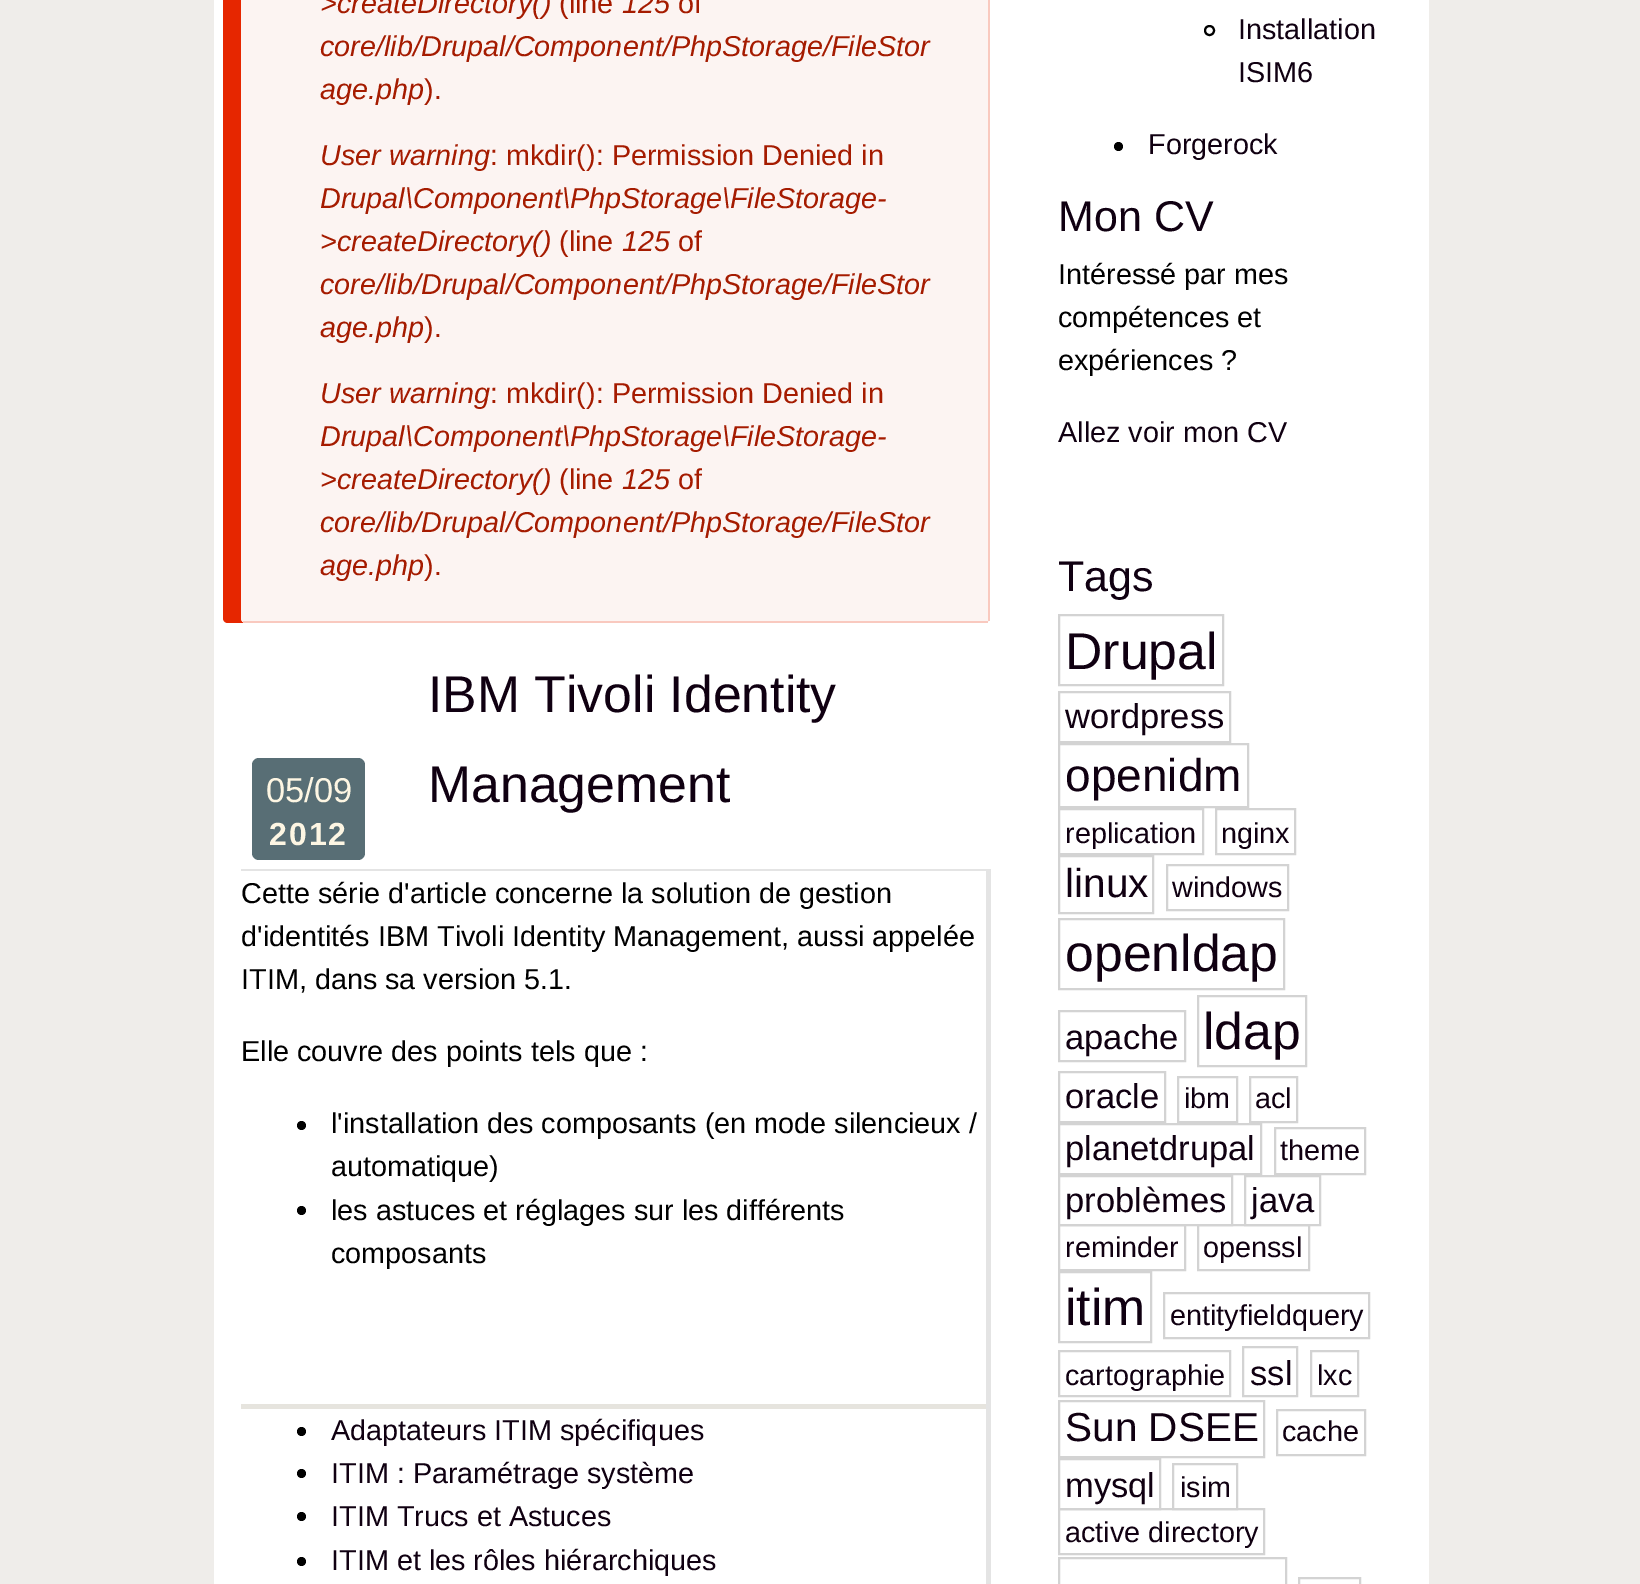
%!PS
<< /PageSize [1640 1584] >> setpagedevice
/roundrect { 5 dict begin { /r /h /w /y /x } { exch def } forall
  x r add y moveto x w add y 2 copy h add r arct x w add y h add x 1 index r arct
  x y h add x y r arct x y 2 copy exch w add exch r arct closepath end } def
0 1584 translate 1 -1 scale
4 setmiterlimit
0.937 0.929 0.918 setrgbcolor
0 0 1640 1584 rectfill
1 setgray
214 0 1215 1584 rectfill
0.902 0.149 0 setrgbcolor
newpath 228 -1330 moveto 225 -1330 223 -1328 223 -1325 curveto 223 618 lineto 223 621 225 623 228 623 curveto 244 623 lineto 242 622 241 621 241 619 curveto 241 -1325 lineto 241 -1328 243 -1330 245 -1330 curveto 969 -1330 lineto 967 -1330 lineto closepath fill
0.988 0.957 0.949 setrgbcolor
241 -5 749 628 5 roundrect fill
0.976 0.788 0.749 setrgbcolor
988 0 2 621 rectfill
243 621 745 2 rectfill
/LiberationSans-Italic [28.8 0 0 -28.8 0 0] selectfont
0.647 0.106 0 setrgbcolor
320 13 moveto (>createDirectory\(\)) show
/LiberationSans-Regular [28.8 0 0 -28.8 0 0] selectfont
559 13 moveto (\(line) show
/LiberationSans-Italic [28.8 0 0 -28.8 0 0] selectfont
622 13 moveto (125) show
/LiberationSans-Regular [28.8 0 0 -28.8 0 0] selectfont
678 13 moveto (of) show
/LiberationSans-Italic [28.8 0 0 -28.8 0 0] selectfont
320 56 moveto (core/lib/Drupal/Component/PhpStorage/FileStor) show
320 99 moveto (age.php) show
/LiberationSans-Regular [28.8 0 0 -28.8 0 0] selectfont
424 99 moveto (\).) show
/LiberationSans-Italic [28.8 0 0 -28.8 0 0] selectfont
320 165 moveto (User warning) show
/LiberationSans-Regular [28.8 0 0 -28.8 0 0] selectfont
490 165 moveto (: mkdir\(\): Permission Denied in) show
/LiberationSans-Italic [28.8 0 0 -28.8 0 0] selectfont
320 208 moveto (Drupal\\Component\\PhpStorage\\FileStorage-) show
320 251 moveto (>createDirectory\(\)) show
/LiberationSans-Regular [28.8 0 0 -28.8 0 0] selectfont
559 251 moveto (\(line) show
/LiberationSans-Italic [28.8 0 0 -28.8 0 0] selectfont
622 251 moveto (125) show
/LiberationSans-Regular [28.8 0 0 -28.8 0 0] selectfont
678 251 moveto (of) show
/LiberationSans-Italic [28.8 0 0 -28.8 0 0] selectfont
320 294 moveto (core/lib/Drupal/Component/PhpStorage/FileStor) show
320 337 moveto (age.php) show
/LiberationSans-Regular [28.8 0 0 -28.8 0 0] selectfont
424 337 moveto (\).) show
/LiberationSans-Italic [28.8 0 0 -28.8 0 0] selectfont
320 403 moveto (User warning) show
/LiberationSans-Regular [28.8 0 0 -28.8 0 0] selectfont
490 403 moveto (: mkdir\(\): Permission Denied in) show
/LiberationSans-Italic [28.8 0 0 -28.8 0 0] selectfont
320 446 moveto (Drupal\\Component\\PhpStorage\\FileStorage-) show
320 489 moveto (>createDirectory\(\)) show
/LiberationSans-Regular [28.8 0 0 -28.8 0 0] selectfont
559 489 moveto (\(line) show
/LiberationSans-Italic [28.8 0 0 -28.8 0 0] selectfont
622 489 moveto (125) show
/LiberationSans-Regular [28.8 0 0 -28.8 0 0] selectfont
678 489 moveto (of) show
/LiberationSans-Italic [28.8 0 0 -28.8 0 0] selectfont
320 532 moveto (core/lib/Drupal/Component/PhpStorage/FileStor) show
320 575 moveto (age.php) show
/LiberationSans-Regular [28.8 0 0 -28.8 0 0] selectfont
424 575 moveto (\).) show
/LiberationSans-Regular [51.75 0 0 -51.75 0 0] selectfont
0.063 0 0.067 setrgbcolor
428 712 moveto (IBM Tivoli Identity) show
428 802 moveto (Management) show
0.894 setgray
986 869 5 715 rectfill
241 869 745 2 rectfill
0.345 0.431 0.459 setrgbcolor
252 758 113 102 7 roundrect fill
/LiberationSans-Regular [34.5 0 0 -34.5 0 0] selectfont
0.992 0.965 0.89 setrgbcolor
266 802 moveto (05/09) show
/LiberationSans-Bold [32 0 0 -32 0 0] selectfont
269 845 moveto 2 0 (2012) ashow
/LiberationSans-Regular [28.8 0 0 -28.8 0 0] selectfont
0 setgray
241 903 moveto (Cette série d'article concerne la solution de gestion) show
241 946 moveto (d'identités IBM Tivoli Identity Management, aussi appelée) show
241 989 moveto (ITIM, dans sa version 5.1.) show
241 1061 moveto (Elle couvre des points tels que :) show
newpath 301.5 1125.5 4.5 0 360 arc closepath fill
331 1133 moveto (l'installation des composants \(en mode silencieux /) show
331 1176 moveto (automatique\)) show
newpath 301.5 1210.5 4.5 0 360 arc closepath fill
331 1220 moveto (les astuces et réglages sur les différents) show
331 1263 moveto (composants) show
0.902 0.894 0.871 setrgbcolor
241 1404 745 5 rectfill
0 setgray
newpath 301.5 1431.5 4.5 0 360 arc closepath fill
0.063 0 0.067 setrgbcolor
331 1440 moveto (Adaptateurs ITIM spécifiques) show
0 setgray
newpath 301.5 1473.5 4.5 0 360 arc closepath fill
0.063 0 0.067 setrgbcolor
331 1483 moveto (ITIM : Paramétrage système) show
0 setgray
newpath 301.5 1516.5 4.5 0 360 arc closepath fill
0.063 0 0.067 setrgbcolor
331 1526 moveto (ITIM Trucs et Astuces) show
0 setgray
newpath 301.5 1561.5 4.5 0 360 arc closepath fill
0.063 0 0.067 setrgbcolor
331 1570 moveto (ITIM et les rôles hiérarchiques) show
0 setgray
2 setlinewidth
newpath 1209.5 30.5 4.5 0 360 arc closepath stroke
0.063 0 0.067 setrgbcolor
1238 39 moveto (Installation) show
1238 82 moveto (ISIM6) show
0 setgray
newpath 1118.5 146.5 4.5 0 360 arc closepath fill
0.063 0 0.067 setrgbcolor
1148 154 moveto (Forgerock) show
/LiberationSans-Regular [43 0 0 -43 0 0] selectfont
1058 231 moveto (Mon CV) show
/LiberationSans-Regular [28.8 0 0 -28.8 0 0] selectfont
0 setgray
1058 284 moveto (Intéressé par mes) show
1058 327 moveto (compétences et) show
1058 370 moveto (expériences ?) show
0.063 0 0.067 setrgbcolor
1058 442 moveto (Allez voir mon CV) show
/LiberationSans-Regular [43 0 0 -43 0 0] selectfont
1058 591 moveto (Tags) show
0.827 setgray
1059 615 164 70 rectstroke
/LiberationSans-Regular [51.75 0 0 -51.75 0 0] selectfont
0.063 0 0.067 setrgbcolor
1065 669 moveto (Drupal) show
0.827 setgray
1059 692 171 50 rectstroke
/LiberationSans-Regular [34.5 0 0 -34.5 0 0] selectfont
0.063 0 0.067 setrgbcolor
1065 728 moveto (wordpress) show
0.827 setgray
1059 744 189 63 rectstroke
/LiberationSans-Regular [46 0 0 -46 0 0] selectfont
0.063 0 0.067 setrgbcolor
1065 791 moveto (openidm) show
0.827 setgray
1059 809 144 45 rectstroke
/LiberationSans-Regular [28.8 0 0 -28.8 0 0] selectfont
0.063 0 0.067 setrgbcolor
1065 843 moveto (replication) show
0.827 setgray
1216 809 79 45 rectstroke
0.063 0 0.067 setrgbcolor
1221 843 moveto (nginx) show
0.827 setgray
1059 856 94 57 rectstroke
/LiberationSans-Regular [40.5 0 0 -40.5 0 0] selectfont
0.063 0 0.067 setrgbcolor
1065 897 moveto (linux) show
0.827 setgray
1167 865 121 45 rectstroke
/LiberationSans-Regular [28.8 0 0 -28.8 0 0] selectfont
0.063 0 0.067 setrgbcolor
1172 897 moveto (windows) show
0.827 setgray
1059 919 225 70 rectstroke
/LiberationSans-Regular [51.75 0 0 -51.75 0 0] selectfont
0.063 0 0.067 setrgbcolor
1065 971 moveto (openldap) show
0.827 setgray
1059 1011 126 50 rectstroke
/LiberationSans-Regular [34.5 0 0 -34.5 0 0] selectfont
0.063 0 0.067 setrgbcolor
1065 1049 moveto (apache) show
0.827 setgray
1198 996 108 70 rectstroke
/LiberationSans-Regular [51.75 0 0 -51.75 0 0] selectfont
0.063 0 0.067 setrgbcolor
1203 1049 moveto (ldap) show
0.827 setgray
1059 1072 106 50 rectstroke
/LiberationSans-Regular [34.5 0 0 -34.5 0 0] selectfont
0.063 0 0.067 setrgbcolor
1065 1108 moveto (oracle) show
0.827 setgray
1178 1077 59 45 rectstroke
/LiberationSans-Regular [28.8 0 0 -28.8 0 0] selectfont
0.063 0 0.067 setrgbcolor
1184 1108 moveto (ibm) show
0.827 setgray
1250 1077 47 45 rectstroke
0.063 0 0.067 setrgbcolor
1255 1108 moveto (acl) show
0.827 setgray
1059 1124 202 50 rectstroke
/LiberationSans-Regular [34.5 0 0 -34.5 0 0] selectfont
0.063 0 0.067 setrgbcolor
1065 1160 moveto (planetdrupal) show
0.827 setgray
1275 1128 90 46 rectstroke
/LiberationSans-Regular [28.8 0 0 -28.8 0 0] selectfont
0.063 0 0.067 setrgbcolor
1280 1160 moveto (theme) show
0.827 setgray
1059 1176 173 49 rectstroke
/LiberationSans-Regular [34.5 0 0 -34.5 0 0] selectfont
0.063 0 0.067 setrgbcolor
1065 1212 moveto (problèmes) show
0.827 setgray
1245 1176 75 49 rectstroke
0.063 0 0.067 setrgbcolor
1251 1212 moveto (java) show
0.827 setgray
1059 1225 126 45 rectstroke
/LiberationSans-Regular [28.8 0 0 -28.8 0 0] selectfont
0.063 0 0.067 setrgbcolor
1065 1257 moveto (reminder) show
0.827 setgray
1198 1225 111 45 rectstroke
0.063 0 0.067 setrgbcolor
1203 1257 moveto (openssl) show
0.827 setgray
1059 1272 92 70 rectstroke
/LiberationSans-Regular [51.75 0 0 -51.75 0 0] selectfont
0.063 0 0.067 setrgbcolor
1065 1325 moveto (itim) show
0.827 setgray
1164 1293 205 45 rectstroke
/LiberationSans-Regular [28.8 0 0 -28.8 0 0] selectfont
0.063 0 0.067 setrgbcolor
1170 1325 moveto (entityfieldquery) show
0.827 setgray
1059 1351 171 45 rectstroke
0.063 0 0.067 setrgbcolor
1065 1385 moveto (cartographie) show
0.827 setgray
1243 1347 54 49 rectstroke
/LiberationSans-Regular [34.5 0 0 -34.5 0 0] selectfont
0.063 0 0.067 setrgbcolor
1250 1385 moveto (ssl) show
0.827 setgray
1311 1351 47 45 rectstroke
/LiberationSans-Regular [28.8 0 0 -28.8 0 0] selectfont
0.063 0 0.067 setrgbcolor
1317 1385 moveto (lxc) show
0.827 setgray
1059 1401 205 56 rectstroke
/LiberationSans-Regular [40.5 0 0 -40.5 0 0] selectfont
0.063 0 0.067 setrgbcolor
1065 1441 moveto (Sun DSEE) show
0.827 setgray
1277 1410 88 45 rectstroke
/LiberationSans-Regular [28.8 0 0 -28.8 0 0] selectfont
0.063 0 0.067 setrgbcolor
1282 1441 moveto (cache) show
0.827 setgray
1059 1459 101 50 rectstroke
/LiberationSans-Regular [34.5 0 0 -34.5 0 0] selectfont
0.063 0 0.067 setrgbcolor
1065 1497 moveto (mysql) show
0.827 setgray
1173 1464 64 45 rectstroke
/LiberationSans-Regular [28.8 0 0 -28.8 0 0] selectfont
0.063 0 0.067 setrgbcolor
1180 1497 moveto (isim) show
0.827 setgray
1059 1509 205 45 rectstroke
0.063 0 0.067 setrgbcolor
1065 1542 moveto (active directory) show
0.827 setgray
1059 1558 227 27 rectstroke
1299 1578 61 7 rectstroke
showpage
